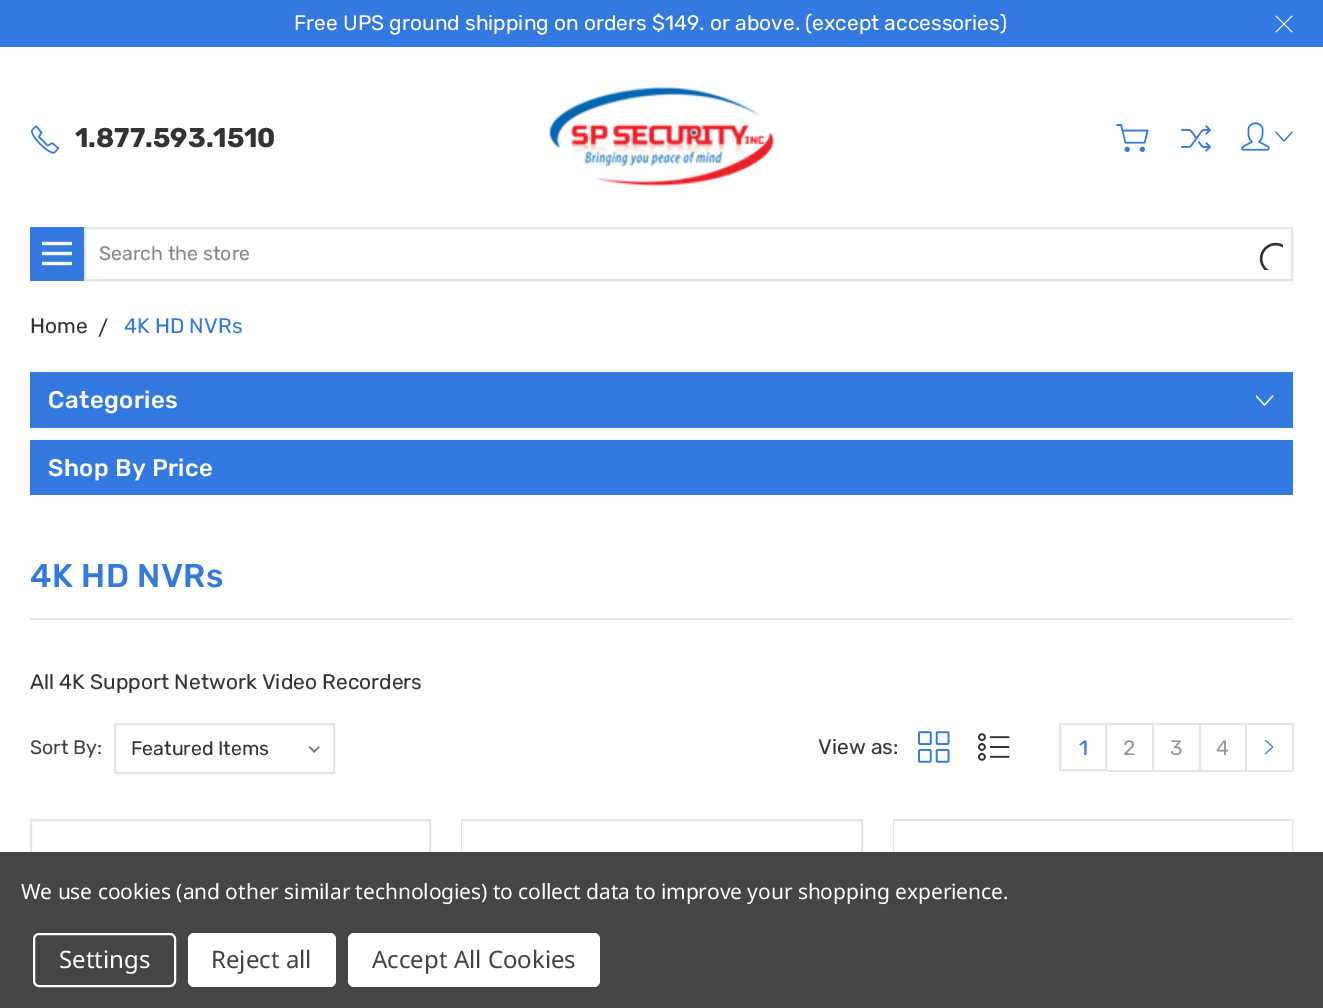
%!PS
<< /PageSize [1323 1008] >> setpagedevice
/roundrect { 5 dict begin { /r /h /w /y /x } { exch def } forall
  x r add y moveto x w add y 2 copy h add r arct x w add y h add x 1 index r arct
  x y h add x y r arct x y 2 copy exch w add exch r arct closepath end } def
/picture { 5 dict begin { /h /w /y /x /name } { exch def } forall
  gsave x y translate w h scale
  w h 8 [w 0 0 h 0 0] name (r) file false 3 colorimage grestore end } def
0 1008 translate 1 -1 scale
4 setmiterlimit
1 setgray
0 0 1323 1008 rectfill
0.204 0.475 0.878 setrgbcolor
0 0 1323 47 rectfill
/Rubik-Regular [21 0 0 -21 0 0] selectfont
1 setgray
294 30 moveto (Free UPS ground shipping on orders $149. or above. \(except accessories\)) show
(img1.rgb) 1275 15 18 18 picture
(img2.rgb) 31 125 29 29 picture
/Rubik-Bold [27 0 0 -27 0 0] selectfont
0.2 setgray
75 147 moveto (1.877.593.1510) show
(img3.rgb) 548 86 227 101 picture
(img4.rgb) 1116 124 33 28 picture
(img5.rgb) 1181 125 30 27 picture
(img6.rgb) 1241 122 29 29 picture
(img7.rgb) 1275 131 18 11 picture
0.204 0.475 0.878 setrgbcolor
30 227 54 54 rectfill
(img8.rgb) 42 241 30 25 picture
0.898 setgray
2 setlinewidth
85 228 1207 52 rectstroke
/Rubik-Regular [19.5 0 0 -19.5 0 0] selectfont
0.533 setgray
99 260 moveto (Search the store) show
(img9.rgb) 1259 242 24 28 picture
/Rubik-Regular [21 0 0 -21 0 0] selectfont
0.2 setgray
30 333 moveto (Home) show
98 335 moveto (/) show
0.204 0.475 0.878 setrgbcolor
124 333 moveto (4K HD NVRs) show
30 372 1263 56 rectfill
/Rubik-Medium [24 0 0 -24 0 0] selectfont
1 setgray
48 408 moveto 0.4 0 (Categories) ashow
(img10.rgb) 1256 395 18 11 picture
0.204 0.475 0.878 setrgbcolor
30 440 1263 55 rectfill
1 setgray
48 476 moveto 0.4 0 (Shop By Price) ashow
0.898 setgray
30 618 1263 2 rectfill
/Rubik-Medium [33 0 0 -33 0 0] selectfont
0.204 0.475 0.878 setrgbcolor
30 587 moveto 0.4 0 (4K HD NVRs) ashow
/Rubik-Regular [21 0 0 -21 0 0] selectfont
0.2 setgray
30 689 moveto (All 4K Support Network Video Recorders) show
/Rubik-Regular [19.5 0 0 -19.5 0 0] selectfont
0.259 setgray
30 754 moveto (Sort By:) show
(img11.rgb) 308 746 12 7 picture
0.898 setgray
115 724 219 49 rectstroke
0.2 setgray
131 755 moveto (Featured Items) show
/Rubik-Regular [21 0 0 -21 0 0] selectfont
818 754 moveto (View as:) show
(img12.rgb) 918 731 32 32 picture
(img13.rgb) 978 733 32 28 picture
0.898 setgray
1060 724 46 46 rectstroke
0.204 0.475 0.878 setrgbcolor
1079 755 moveto (1) show
0.898 setgray
1107 723 93 2 rectfill
1152 723 2 48 rectfill
1107 770 47 2 rectfill
0.6 setgray
1123 755 moveto (2) show
0.898 setgray
1199 723 2 48 rectfill
1154 770 46 2 rectfill
0.6 setgray
1170 755 moveto (3) show
0.898 setgray
1200 723 93 2 rectfill
1245 723 2 48 rectfill
1200 770 47 2 rectfill
0.6 setgray
1216 755 moveto (4) show
0.898 setgray
1292 723 2 48 rectfill
1247 770 46 2 rectfill
(img14.rgb) 1264 740 10 15 picture
31 820 399 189 rectstroke
462 820 400 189 rectstroke
1 setgray
462 821 1 31 rectfill
0.898 setgray
894 820 398 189 rectstroke
1 setgray
894 821 398 31 rectfill
0.271 setgray
0 852 1323 156 rectfill
/NotoSans-Regular [21 0 0 -21 0 0] selectfont
1 setgray
21 899 moveto -0.08 0 (We use cookies \(and other similar technologies\) to collect data to improve your shopping experience.) ashow
34 934 141 52 5 roundrect stroke
/NotoSans-Regular [24 0 0 -24 0 0] selectfont
59 968 moveto (Settings) show
188 933 148 54 6 roundrect fill
0.259 setgray
211 968 moveto (Reject all) show
1 setgray
348 933 252 54 6 roundrect fill
0.259 setgray
372 968 moveto (Accept All Cookies) show
showpage
